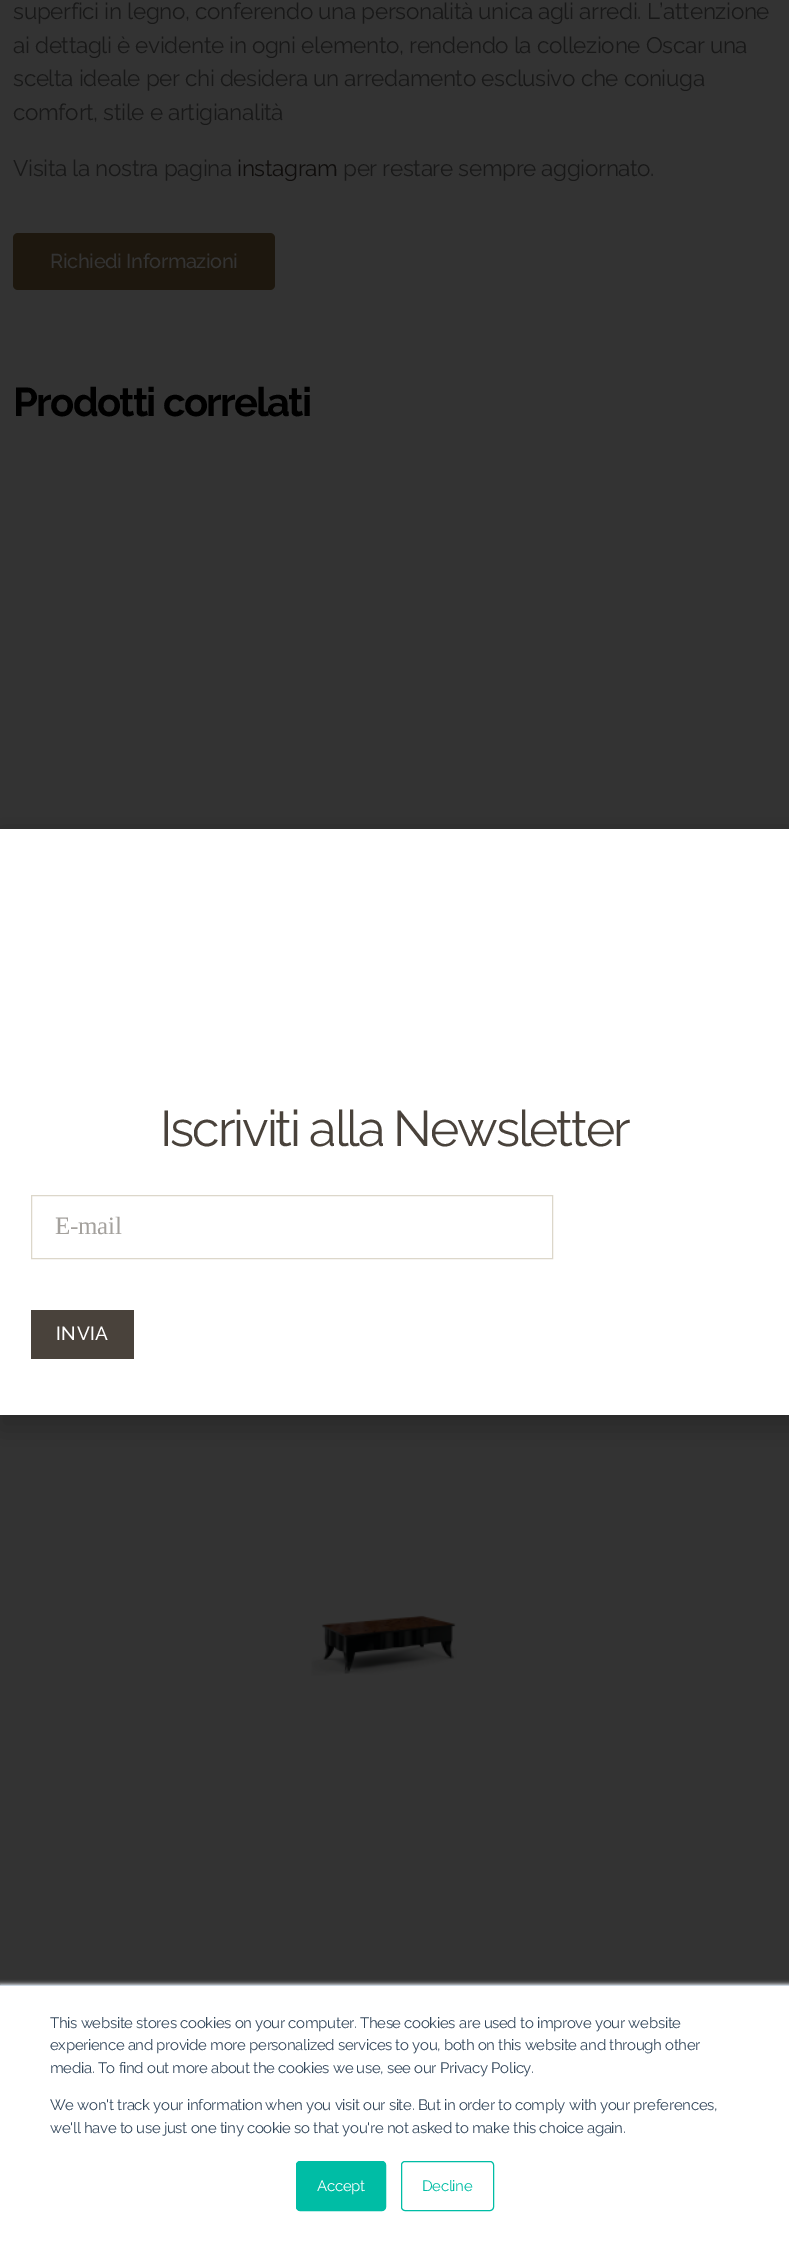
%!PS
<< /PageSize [789 2243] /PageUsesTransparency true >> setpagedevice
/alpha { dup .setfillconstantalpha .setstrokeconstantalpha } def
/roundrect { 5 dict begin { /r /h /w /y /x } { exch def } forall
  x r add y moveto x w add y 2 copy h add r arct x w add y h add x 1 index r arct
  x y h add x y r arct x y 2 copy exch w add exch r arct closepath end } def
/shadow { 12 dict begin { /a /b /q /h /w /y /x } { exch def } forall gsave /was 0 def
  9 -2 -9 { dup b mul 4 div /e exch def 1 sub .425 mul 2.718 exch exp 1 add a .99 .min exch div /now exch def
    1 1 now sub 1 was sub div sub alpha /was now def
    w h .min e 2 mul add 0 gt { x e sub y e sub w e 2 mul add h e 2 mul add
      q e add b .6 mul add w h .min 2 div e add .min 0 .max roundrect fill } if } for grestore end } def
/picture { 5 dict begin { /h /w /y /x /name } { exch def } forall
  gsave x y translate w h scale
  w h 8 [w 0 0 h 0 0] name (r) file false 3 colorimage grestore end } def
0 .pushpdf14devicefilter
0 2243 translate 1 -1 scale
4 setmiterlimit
0.2 setgray
0 0 789 2243 rectfill
/Raleway-Regular [22.5 0 0 -22.5 0 0] selectfont
0.094 setgray
13 19 moveto -0.34 0 (superfici in legno, conferendo una personalità unica agli arredi. L’attenzione) ashow
13 53 moveto -0.34 0 (ai dettagli è evidente in ogni elemento, rendendo la collezione Oscar una) ashow
13 86 moveto -0.34 0 (scelta ideale per chi desidera un arredamento esclusivo che coniuga) ashow
13 120 moveto -0.34 0 (comfort, stile e artigianalità) ashow
13 176 moveto -0.34 0 (Visita la nostra pagina) ashow
0.059 0.051 0.047 setrgbcolor
237 176 moveto -0.34 0 (instagram) ashow
0.094 setgray
343 176 moveto -0.34 0 (per restare sempre aggiornato.) ashow
0.114 0.09 0.055 setrgbcolor
13 233 262 57 5 roundrect fill
/Raleway-Medium [20 0 0 -20 0 0] selectfont
0.2 setgray
50 268 moveto -0.34 0 (Richiedi Informazioni) ashow
/Raleway-Bold [40 0 0 -40 0 0] selectfont
0 setgray
13 416 moveto -1.7 0 (Prodotti correlati) ashow
(img1.rgb) 311 1615 146 61 picture
-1 835 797 594 0 14.5 0.2 shadow
1 setgray
0 829 789 586 rectfill
/Raleway-Regular [50 0 0 -50 0 0] selectfont
0.286 0.259 0.231 setrgbcolor
160 1146 moveto -2.1 0 (Iscriviti alla Newsletter) ashow
0.863 0.843 0.792 setrgbcolor
31.5 1195.5 521 63 rectstroke
/LiberationSerif-Regular [25 0 0 -25 0 0] selectfont
0.643 0.631 0.616 setrgbcolor
55 1234 moveto -0.25 0 (E-mail) ashow
0.286 0.259 0.231 setrgbcolor
31 1310 103 49 rectfill
/Raleway-Medium [19 0 0 -19 0 0] selectfont
1 setgray
56 1340 moveto 0.5 0 (INVIA) ashow
0.918 0.941 0.965 setrgbcolor
0 1984 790 259 0 2 1 shadow
1 setgray
0 1986 789 257 rectfill
0.796 0.839 0.886 setrgbcolor
0 1985 789 1 rectfill
/Raleway-Regular [15 0 0 -15 0 0] selectfont
0.2 0.278 0.357 setrgbcolor
50 2028 moveto -0.34 0 (This website stores cookies on your computer. These cookies are used to improve your website) ashow
50 2050 moveto -0.34 0 (experience and provide more personalized services to you, both on this website and through other) ashow
50 2073 moveto -0.34 0 (media. To find out more about the cookies we use, see our Privacy Policy.) ashow
50 2110 moveto -0.34 0 (We won't track your information when you visit our site. But in order to comply with your preferences,) ashow
50 2133 moveto -0.34 0 (we'll have to use just one tiny cookie so that you're not asked to make this choice again.) ashow
0 0.741 0.647 setrgbcolor
296.5 2161.5 89 49 3.5 roundrect gsave fill grestore
stroke
1 setgray
317 2191 moveto -0.34 0 (Accept) ashow
0 0.741 0.647 setrgbcolor
401.5 2161.5 92 49 3.5 roundrect stroke
422 2191 moveto -0.34 0 (Decline) ashow
.poppdf14devicefilter showpage
